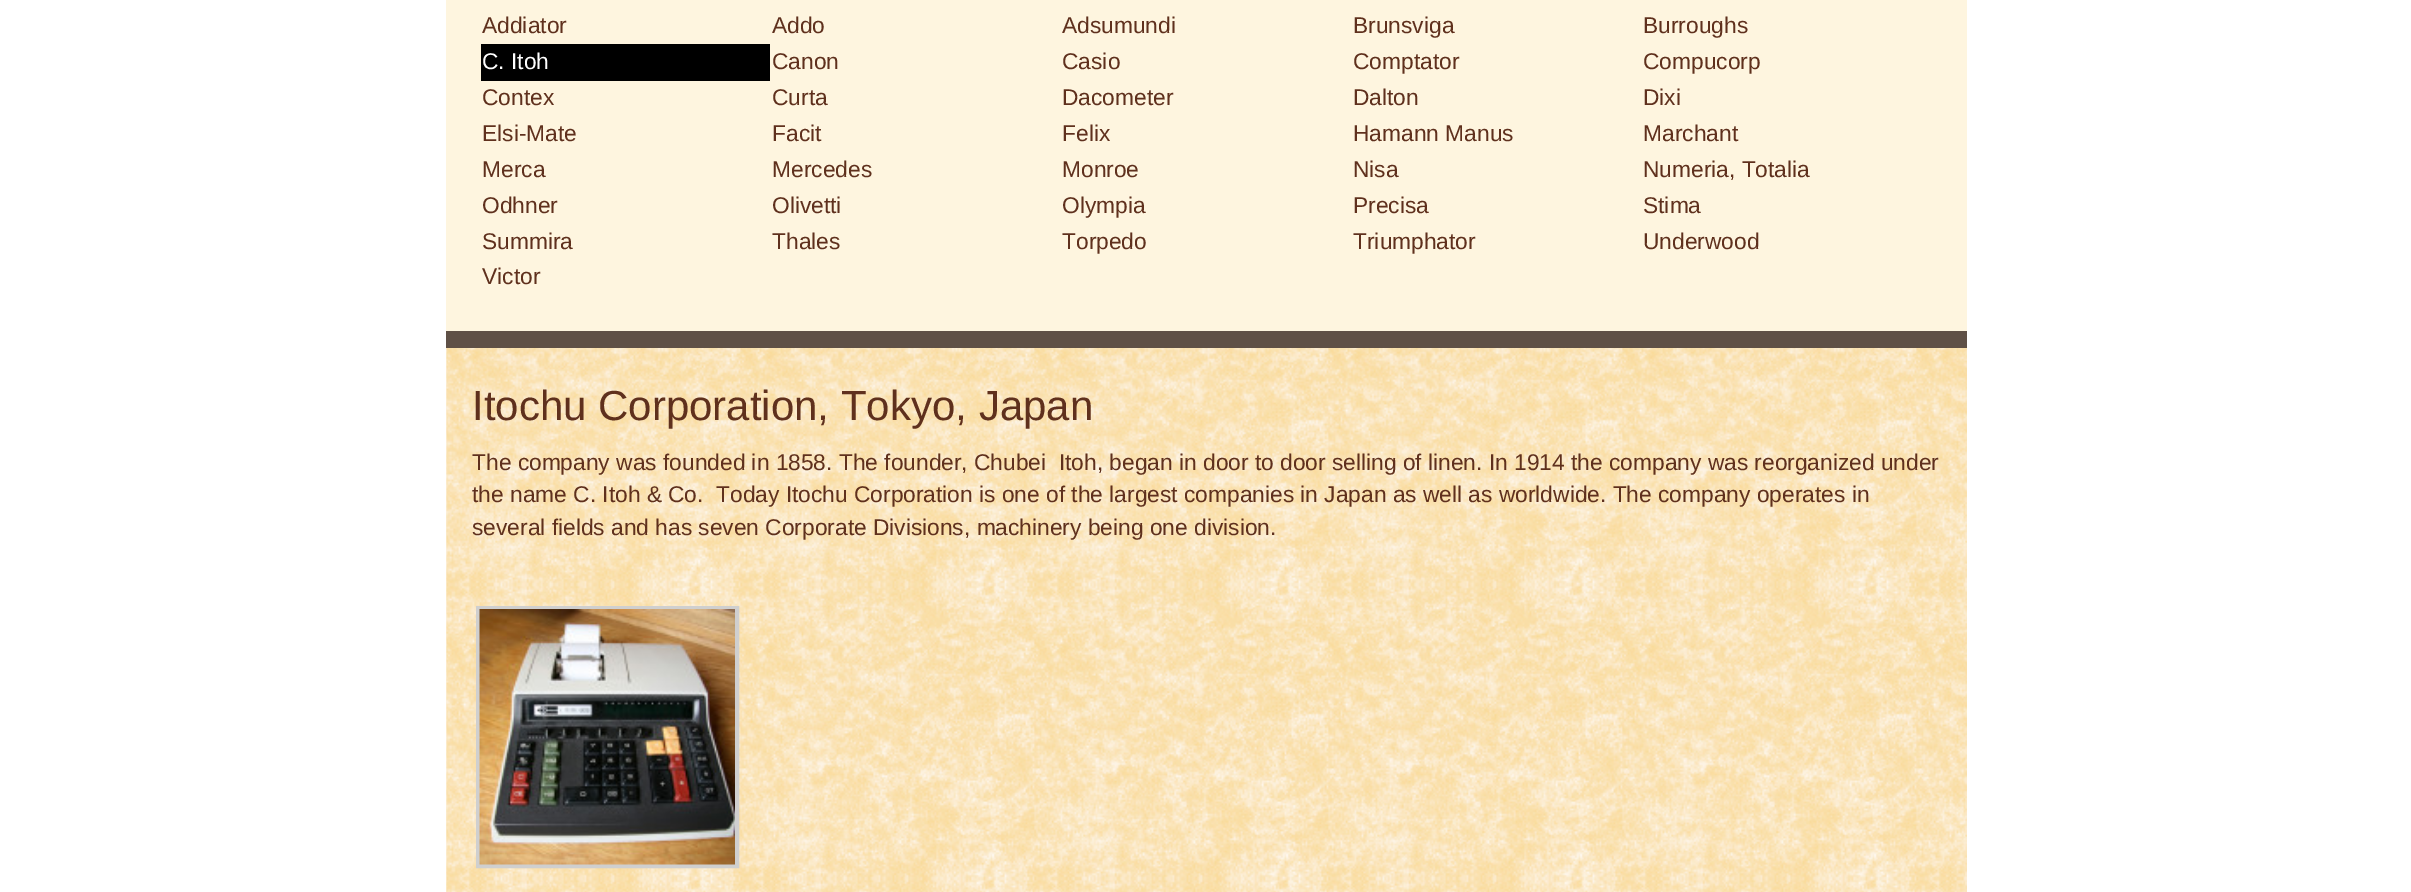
%!PS
<< /PageSize [2411 892] >> setpagedevice
/picture { 5 dict begin { /h /w /y /x /name } { exch def } forall
  gsave x y translate w h scale
  w h 8 [w 0 0 h 0 0] name (r) file false 3 colorimage grestore end } def
0 892 translate 1 -1 scale
4 setmiterlimit
1 setgray
0 0 2411 892 rectfill
(img1.rgb) 446 348 1521 544 picture
0.996 0.961 0.875 setrgbcolor
446 0 1521 331 rectfill
0.373 0.314 0.275 setrgbcolor
446 331 1521 17 rectfill
/LiberationSans-Regular [22.75 0 0 -22.75 0 0] selectfont
0.373 0.188 0.114 setrgbcolor
482 33 moveto (Addiator) show
772 33 moveto (Addo) show
1062 33 moveto (Adsumundi) show
1353 33 moveto (Brunsviga) show
1643 33 moveto (Burroughs) show
0 setgray
481 44 289 37 rectfill
1 setgray
482 69 moveto (C. Itoh) show
0.373 0.188 0.114 setrgbcolor
772 69 moveto (Canon) show
1062 69 moveto (Casio) show
1353 69 moveto (Comptator) show
1643 69 moveto (Compucorp) show
482 105 moveto (Contex) show
772 105 moveto (Curta) show
1062 105 moveto (Dacometer) show
1353 105 moveto (Dalton) show
1643 105 moveto (Dixi) show
482 141 moveto (Elsi-Mate) show
772 141 moveto (Facit) show
1062 141 moveto (Felix) show
1353 141 moveto (Hamann Manus) show
1643 141 moveto (Marchant) show
482 177 moveto (Merca) show
772 177 moveto (Mercedes) show
1062 177 moveto (Monroe) show
1353 177 moveto (Nisa) show
1643 177 moveto (Numeria, Totalia) show
482 213 moveto (Odhner) show
772 213 moveto (Olivetti) show
1062 213 moveto (Olympia) show
1353 213 moveto (Precisa) show
1643 213 moveto (Stima) show
482 249 moveto (Summira) show
772 249 moveto (Thales) show
1062 249 moveto (Torpedo) show
1353 249 moveto (Triumphator) show
1643 249 moveto (Underwood) show
482 284 moveto (Victor) show
/LiberationSans-Regular [42 0 0 -42 0 0] selectfont
472 420 moveto (Itochu Corporation, Tokyo, Japan) show
/LiberationSans-Regular [22.75 0 0 -22.75 0 0] selectfont
472 470 moveto (The company was founded in 1858. The founder, Chubei  Itoh, began in door to door selling of linen. In 1914 the company was reorganized under) show
472 502 moveto (the name C. Itoh & Co.  Today Itochu Corporation is one of the largest companies in Japan as well as worldwide. The company operates in) show
472 535 moveto (several fields and has seven Corporate Divisions, machinery being one division.) show
0.812 setgray
4 setlinewidth
478 608 259 258 rectstroke
(img2.rgb) 479 609 256 256 picture
showpage
